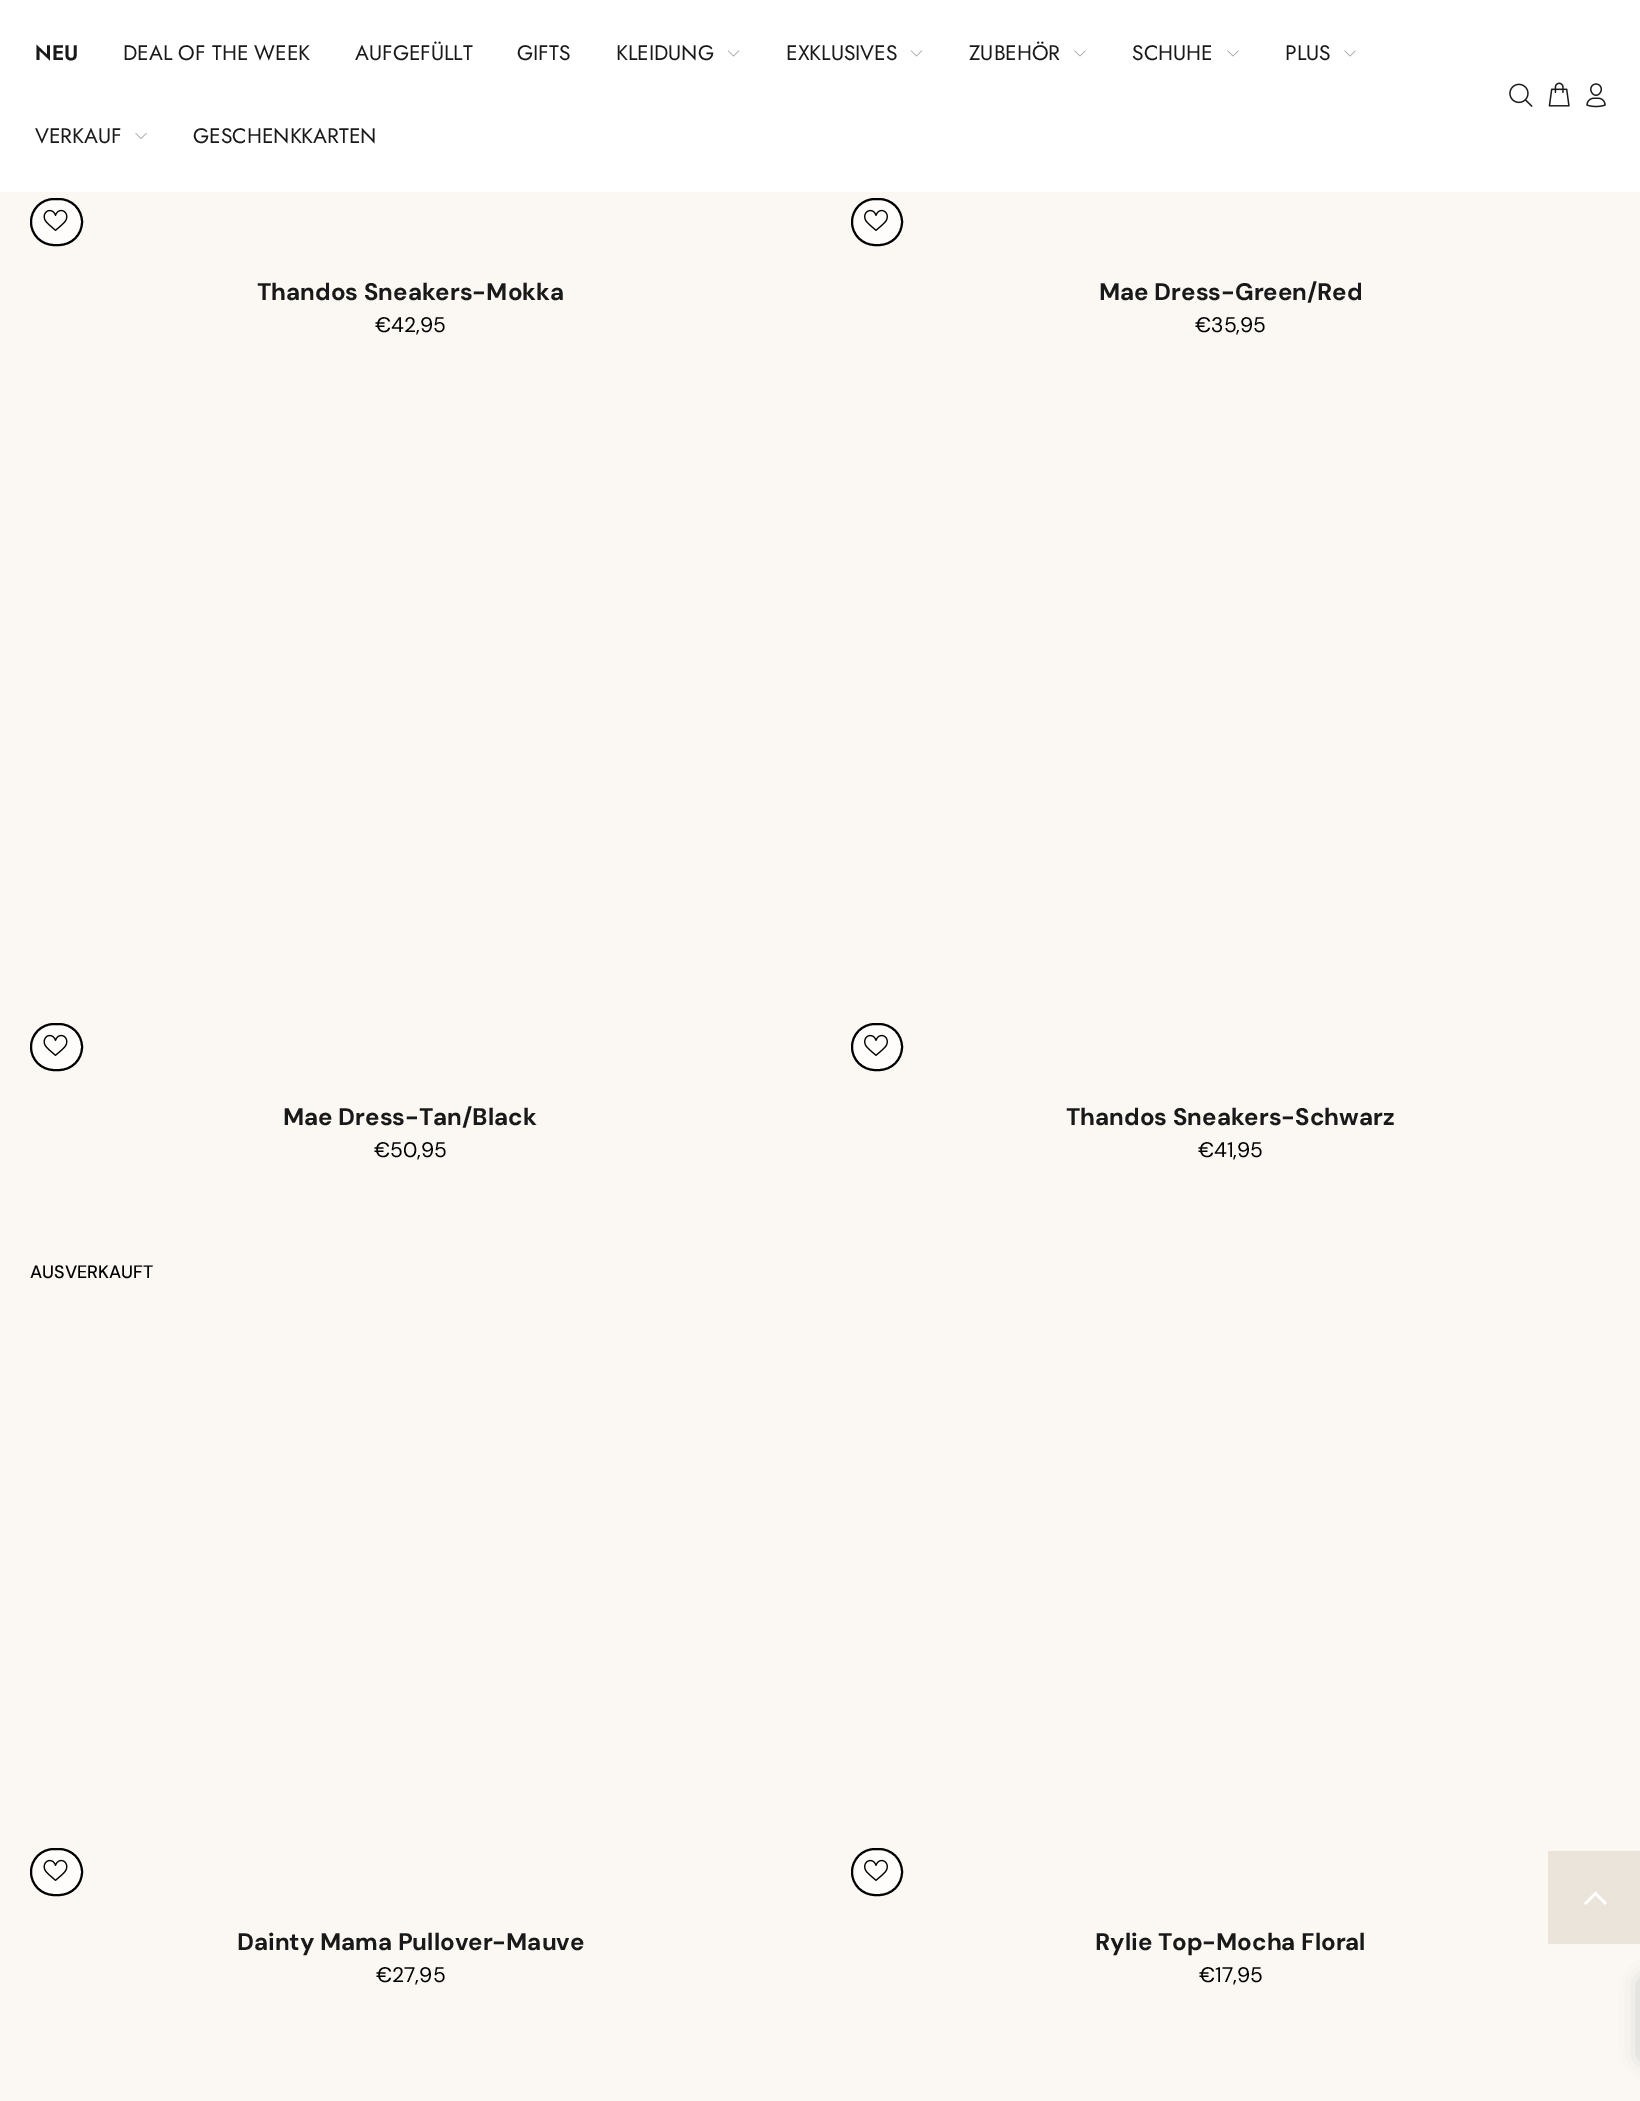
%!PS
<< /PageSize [1640 2101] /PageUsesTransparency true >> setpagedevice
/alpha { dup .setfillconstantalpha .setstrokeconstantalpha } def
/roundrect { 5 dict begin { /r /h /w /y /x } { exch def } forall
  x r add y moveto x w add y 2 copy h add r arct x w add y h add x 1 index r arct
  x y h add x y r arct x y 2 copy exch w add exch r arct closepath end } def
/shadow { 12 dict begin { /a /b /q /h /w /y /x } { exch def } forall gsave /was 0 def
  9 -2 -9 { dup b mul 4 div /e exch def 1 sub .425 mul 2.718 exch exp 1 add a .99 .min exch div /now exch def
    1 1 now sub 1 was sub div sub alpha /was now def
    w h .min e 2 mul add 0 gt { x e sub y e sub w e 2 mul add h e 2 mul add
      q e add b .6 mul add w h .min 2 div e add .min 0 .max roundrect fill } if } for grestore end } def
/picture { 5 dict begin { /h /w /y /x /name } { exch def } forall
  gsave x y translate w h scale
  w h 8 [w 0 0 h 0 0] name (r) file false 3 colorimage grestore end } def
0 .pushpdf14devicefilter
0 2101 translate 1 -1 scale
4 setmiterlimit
0.984 0.973 0.953 setrgbcolor
0 0 1640 2101 rectfill
1 setgray
0 0 1640 192 rectfill
/Jost-SemiBold [21 0 0 -21 0 0] selectfont
0.098 setgray
35 60 moveto (NEU) show
/Jost-Regular [21 0 0 -21 0 0] selectfont
123 60 moveto (DEAL OF THE WEEK) show
355 60 moveto (AUFGEFÜLLT) show
517 60 moveto (GIFTS) show
616 60 moveto (KLEIDUNG) show
(img1.rgb) 727 50 13 7 picture
786 60 moveto (EXKLUSIVES) show
(img1.rgb) 910 50 13 7 picture
969 60 moveto (ZUBEHÖR) show
(img2.rgb) 1074 50 12 7 picture
1132 60 moveto (SCHUHE) show
(img2.rgb) 1227 50 12 7 picture
1285 60 moveto (PLUS) show
(img2.rgb) 1344 50 12 7 picture
35 143 moveto (VERKAUF) show
(img3.rgb) 135 133 12 6 picture
193 143 moveto (GESCHENKKARTEN) show
(img4.rgb) 1509 83 24 24 picture
(img5.rgb) 1548 82 22 25 picture
(img6.rgb) 1586 83 20 25 picture
0.996 0.992 0.988 setrgbcolor
31 199 51 46 23 roundrect gsave fill grestore
0 setgray
2 setlinewidth
stroke
(img7.rgb) 43 209 25 22 picture
/DMSans-Bold [24 0 0 -24 0 0] selectfont
0.098 setgray
257 300 moveto (Thandos Sneakers-Mokka) show
/DMSans-Regular [21 0 0 -21 0 0] selectfont
0 setgray
375 332 moveto (€42,95) show
0.996 0.992 0.988 setrgbcolor
852 199 50 46 23 roundrect gsave fill grestore
0 setgray
stroke
(img8.rgb) 864 209 24 22 picture
/DMSans-Bold [24 0 0 -24 0 0] selectfont
0.098 setgray
1099 300 moveto (Mae Dress-Green/Red) show
/DMSans-Regular [21 0 0 -21 0 0] selectfont
0 setgray
1195 332 moveto (€35,95) show
0.996 0.992 0.988 setrgbcolor
31 1024 51 46 23 roundrect gsave fill grestore
0 setgray
stroke
(img7.rgb) 43 1034 25 22 picture
/DMSans-Bold [24 0 0 -24 0 0] selectfont
0.098 setgray
283 1125 moveto (Mae Dress-Tan/Black) show
/DMSans-Regular [21 0 0 -21 0 0] selectfont
0 setgray
374 1157 moveto (€50,95) show
0.996 0.992 0.988 setrgbcolor
852 1024 50 46 23 roundrect gsave fill grestore
0 setgray
stroke
(img8.rgb) 864 1034 24 22 picture
/DMSans-Bold [24 0 0 -24 0 0] selectfont
0.098 setgray
1066 1125 moveto (Thandos Sneakers-Schwarz) show
/DMSans-Regular [21 0 0 -21 0 0] selectfont
0 setgray
1198 1157 moveto (€41,95) show
/DMSans-Medium [18 0 0 -18 0 0] selectfont
30 1278 moveto (AUSVERKAUFT) show
0.996 0.992 0.988 setrgbcolor
31 1849 51 46 23 roundrect gsave fill grestore
0 setgray
stroke
(img7.rgb) 43 1859 25 22 picture
/DMSans-Bold [24 0 0 -24 0 0] selectfont
0.098 setgray
237 1950 moveto (Dainty Mama Pullover-Mauve) show
/DMSans-Regular [21 0 0 -21 0 0] selectfont
0 setgray
376 1982 moveto (€27,95) show
0.996 0.992 0.988 setrgbcolor
852 1849 50 46 23 roundrect gsave fill grestore
0 setgray
stroke
(img8.rgb) 864 1859 24 22 picture
/DMSans-Bold [24 0 0 -24 0 0] selectfont
0.098 setgray
1095 1950 moveto (Rylie Top-Mocha Floral) show
/DMSans-Regular [21 0 0 -21 0 0] selectfont
0 setgray
1199 1982 moveto (€17,95) show
0.922 0.894 0.855 setrgbcolor
1548 1851 92 93 rectfill
1 setgray
newpath 1605 1905 moveto 1595.5 1895.5 lineto 1586 1905 lineto 1584 1903 lineto 1595.5 1891.5 lineto 1607 1903 lineto closepath fill
0.459 setgray
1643 1982 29 75 0 10.5 0.5 shadow
.poppdf14devicefilter showpage
